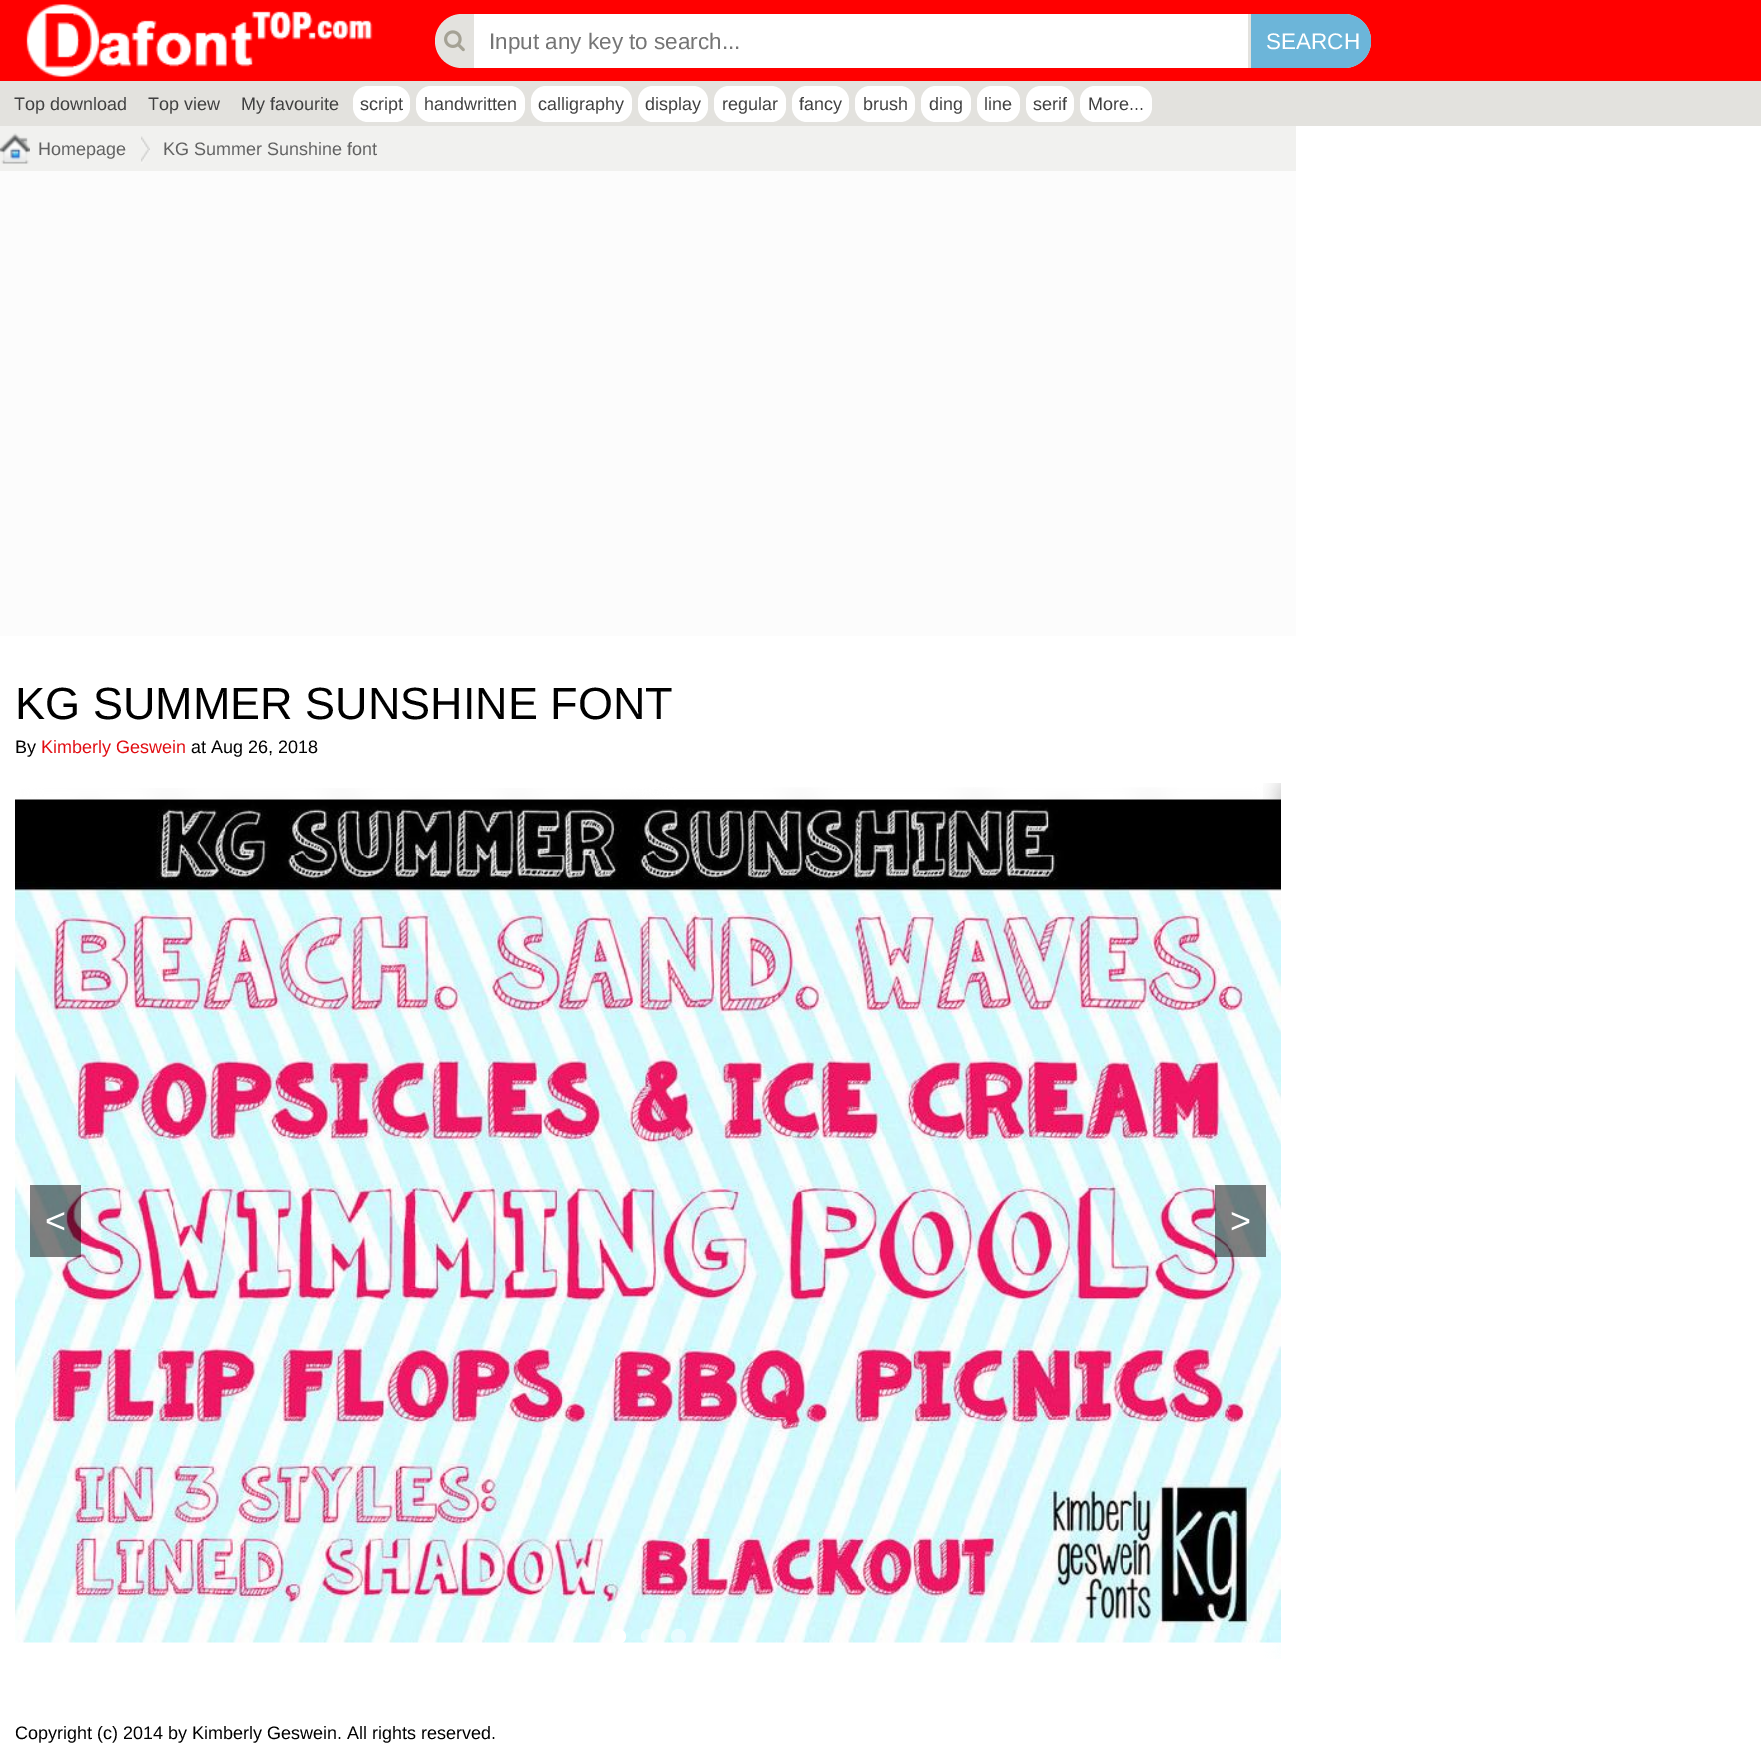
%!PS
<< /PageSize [1761 1752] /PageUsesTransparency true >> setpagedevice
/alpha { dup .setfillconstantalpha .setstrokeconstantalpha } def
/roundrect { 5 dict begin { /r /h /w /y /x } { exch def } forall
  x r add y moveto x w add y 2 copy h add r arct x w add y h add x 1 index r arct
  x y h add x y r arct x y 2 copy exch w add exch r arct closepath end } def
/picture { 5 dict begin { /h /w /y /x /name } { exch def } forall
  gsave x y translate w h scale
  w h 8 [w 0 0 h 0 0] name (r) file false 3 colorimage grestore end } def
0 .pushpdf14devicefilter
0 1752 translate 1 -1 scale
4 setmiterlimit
1 setgray
0 0 1761 1752 rectfill
1 0 0 setrgbcolor
0 0 1761 81 rectfill
(img1.rgb) 26 4 347 73 picture
0.89 0.886 0.871 setrgbcolor
435 14 936 54 27 roundrect fill
(img2.rgb) 444 30 21 22 picture
1 setgray
474 14 774 54 rectfill
/LiberationSans-Regular [22.5 0 0 -22.5 0 0] selectfont
0.459 setgray
489 49 moveto (Input any key to search...) show
0.424 0.71 0.851 setrgbcolor
newpath 1251 14 moveto 1344 14 lineto 1359 14 1371 26 1371 41 curveto 1371 56 1359 68 1344 68 curveto 1251 68 lineto closepath fill
1 setgray
1266 49 moveto (SEARCH) show
0.89 0.886 0.871 setrgbcolor
0 81 1761 45 rectfill
/LiberationSans-Regular [18 0 0 -18 0 0] selectfont
0.251 setgray
14 110 moveto (Top download) show
148 110 moveto (Top view) show
241 110 moveto (My favourite) show
1 setgray
353 86 57 36 15 roundrect fill
0.251 setgray
360 110 moveto (script) show
1 setgray
416 86 109 36 15 roundrect fill
0.251 setgray
424 110 moveto (handwritten) show
1 setgray
531 86 101 36 15 roundrect fill
0.251 setgray
538 110 moveto (calligraphy) show
1 setgray
638 86 70 36 15 roundrect fill
0.251 setgray
645 110 moveto (display) show
1 setgray
714 86 72 36 15 roundrect fill
0.251 setgray
722 110 moveto (regular) show
1 setgray
792 86 57 36 15 roundrect fill
0.251 setgray
799 110 moveto (fancy) show
1 setgray
855 86 60 36 15 roundrect fill
0.251 setgray
863 110 moveto (brush) show
1 setgray
921 86 50 36 15 roundrect fill
0.251 setgray
929 110 moveto (ding) show
1 setgray
977 86 43 36 15 roundrect fill
0.251 setgray
984 110 moveto (line) show
1 setgray
1026 86 48 36 15 roundrect fill
0.251 setgray
1033 110 moveto (serif) show
1 setgray
1080 86 72 36 15 roundrect fill
0.251 setgray
1088 110 moveto (More...) show
0.945 0.945 0.937 setrgbcolor
0 126 1296 45 rectfill
(img3.rgb) 0 133 30 31 picture
0.384 setgray
38 155 moveto (Homepage) show
(img4.rgb) 141 136 9 28 picture
163 155 moveto (KG Summer Sunshine font) show
0.988 setgray
0 171 1296 465 rectfill
/LiberationSans-Regular [45 0 0 -45 0 0] selectfont
0 setgray
15 719 moveto (KG SUMMER SUNSHINE FONT) show
/LiberationSans-Regular [18 0 0 -18 0 0] selectfont
15 753 moveto (By) show
0.882 0.051 0.071 setrgbcolor
41 753 moveto (Kimberly Geswein) show
0 setgray
191 753 moveto (at Aug 26, 2018) show
(img6.rgb) 19 788 642 12 picture
(img7.rgb) 637 787 644 13 picture
(img5.rgb) 1263 783 18 876 picture
(img8.rgb) 15 799 1266 844 picture
0.5 alpha
30 1185 51 72 rectfill
/LiberationSans-Regular [36 0 0 -36 0 0] selectfont
1 alpha
1 setgray
45 1233 moveto (<) show
0.5 alpha
0 setgray
1215 1185 51 72 rectfill
1 alpha
1 setgray
1230 1233 moveto (>) show
newpath 618.5 1636.5 7.5 0 360 arc closepath fill
0.5 alpha
newpath 648.5 1636.5 7.5 0 360 arc closepath fill
newpath 678.5 1636.5 7.5 0 360 arc closepath fill
/LiberationSans-Regular [18 0 0 -18 0 0] selectfont
1 alpha
0 setgray
15 1739 moveto (Copyright \(c\) 2014 by Kimberly Geswein. All rights reserved.) show
.poppdf14devicefilter showpage
